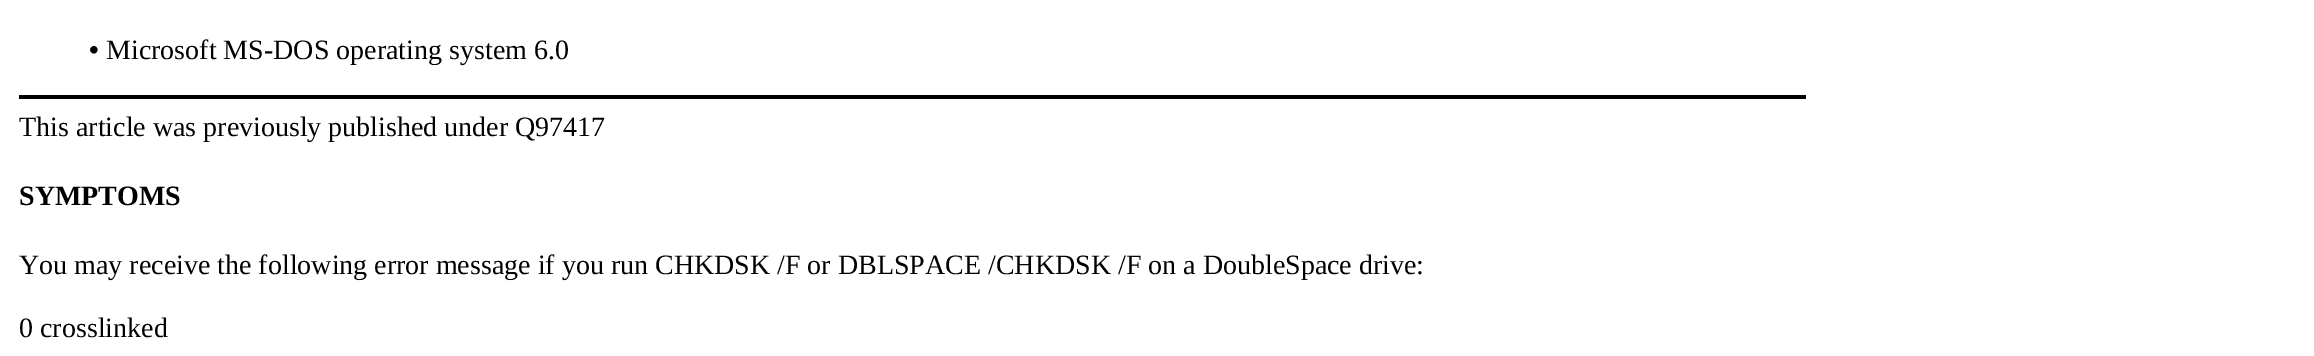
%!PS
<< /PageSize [2314 356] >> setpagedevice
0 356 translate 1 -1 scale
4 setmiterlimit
1 setgray
0 0 2314 356 rectfill
/LiberationSerif-Bold [28 0 0 -28 0 0] selectfont
0 setgray
89 59 moveto (•) show
/LiberationSerif-Regular [28 0 0 -28 0 0] selectfont
106 59 moveto (Microsoft MS-DOS operating system 6.0) show
19 95 1787 4 rectfill
19 136 moveto (This article was previously published under Q97417) show
/LiberationSerif-Bold [28 0 0 -28 0 0] selectfont
19 205 moveto (SYMPTOMS) show
/LiberationSerif-Regular [28 0 0 -28 0 0] selectfont
19 274 moveto (You may receive the following error message if you run CHKDSK /F or DBLSPACE /CHKDSK /F on a DoubleSpace drive:) show
19 337 moveto (0 crosslinked) show
showpage
